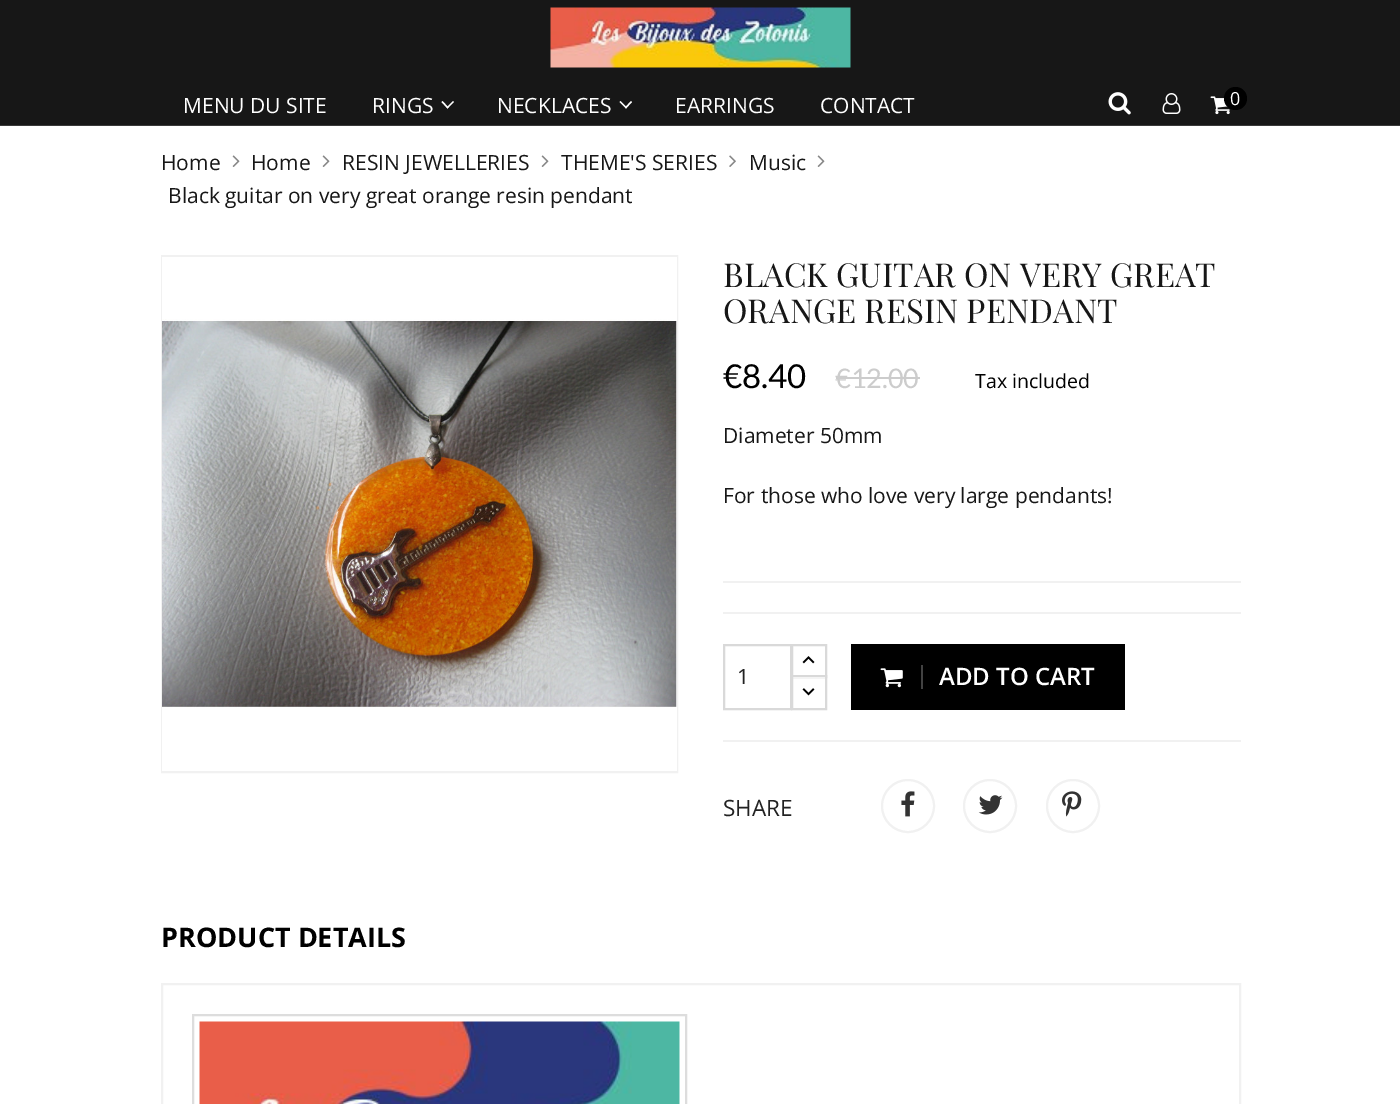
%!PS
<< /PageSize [1400 1104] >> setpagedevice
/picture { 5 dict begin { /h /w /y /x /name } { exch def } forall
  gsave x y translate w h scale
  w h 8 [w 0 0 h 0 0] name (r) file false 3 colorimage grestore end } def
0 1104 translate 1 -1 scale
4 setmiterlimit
1 setgray
0 0 1400 1104 rectfill
0.09 setgray
0 0 1400 125 rectfill
0.227 setgray
0 125 1400 1 rectfill
(img1.rgb) 550 7 301 61 picture
/OpenSans-Regular [21 0 0 -21 0 0] selectfont
1 setgray
183 113 moveto (MENU DU SITE) show
372 113 moveto (RINGS) show
newpath 446.5 107.5 moveto 453 101 lineto 454 102 lineto 447.5 108.5 lineto closepath fill
newpath 441.5 102 moveto 442.5 101 lineto 448.5 107.5 lineto 447.5 108.5 lineto closepath fill
497 113 moveto (NECKLACES) show
newpath 625 107.5 moveto 631 101 lineto 632 102 lineto 626 108.5 lineto closepath fill
newpath 619.5 102 moveto 620.5 101 lineto 627 107.5 lineto 626 108.5 lineto closepath fill
675 113 moveto (EARRINGS) show
820 113 moveto (CONTACT) show
(img2.rgb) 1108 92 23 23 picture
(img3.rgb) 1162 93 19 21 picture
(img4.rgb) 1210 96 20 19 picture
0 setgray
newpath 1235.5 98.5 11.5 0 360 arc closepath fill
/OpenSans-Regular [18 0 0 -18 0 0] selectfont
1 setgray
1230 105 moveto (0) show
/OpenSans-Regular [21 0 0 -21 0 0] selectfont
0.09 setgray
161 170 moveto (Home) show
(img5.rgb) 232 155 8 12 picture
251 170 moveto (Home) show
(img5.rgb) 322 155 8 12 picture
342 170 moveto (RESIN JEWELLERIES) show
(img5.rgb) 541 155 8 12 picture
561 170 moveto (THEME'S SERIES) show
(img6.rgb) 729 155 7 12 picture
749 170 moveto (Music) show
(img5.rgb) 817 155 8 12 picture
168 203 moveto (Black guitar on very great orange resin pendant) show
0.945 setgray
2 setlinewidth
162 256 515 516 rectstroke
1 setgray
162 257 515 514 rectfill
(img7.rgb) 162 319 515 389 picture
/PlayfairDisplay-Regular [33 0 0 -33 0 0] selectfont
0.09 setgray
723 287 moveto (BLACK GUITAR ON VERY GREAT) show
723 323 moveto (ORANGE RESIN PENDANT) show
/Lato-Regular [33 0 0 -33 0 0] selectfont
0 setgray
723 388 moveto (€8.40) show
/Lato-Regular [27 0 0 -27 0 0] selectfont
0.8 setgray
835 388 moveto (€12.00) show
836 377 84 2 rectfill
/OpenSans-Regular [19.5 0 0 -19.5 0 0] selectfont
0 setgray
975 388 moveto (Tax included) show
/OpenSans-Regular [21 0 0 -21 0 0] selectfont
0.09 setgray
723 443 moveto (Diameter 50mm) show
723 503 moveto (For those who love very large pendants!) show
0.945 setgray
723 581 518 2 rectfill
723 612 518 2 rectfill
0.851 setgray
724 645 67 64 rectstroke
0.133 setgray
737 684 moveto (1) show
0.851 setgray
792 645 34 32 rectstroke
(img8.rgb) 802 656 13 8 picture
1 setgray
793 677 32 1 rectfill
0.851 setgray
792 676 34 33 rectstroke
(img9.rgb) 802 688 13 8 picture
0 setgray
851 644 274 66 rectfill
0.259 setgray
921 665 2 24 rectfill
(img10.rgb) 880 668 23 20 picture
/OpenSans-SemiBold [24 0 0 -24 0 0] selectfont
1 setgray
939 685 moveto (ADD TO CART) show
0.945 setgray
723 740 518 2 rectfill
/OpenSans-Regular [22.5 0 0 -22.5 0 0] selectfont
0.133 setgray
723 816 moveto (SHARE) show
0.945 setgray
newpath 908 806 26 0 360 arc closepath stroke
(img11.rgb) 901 791 14 26 picture
newpath 990 806 26 0 360 arc closepath stroke
(img12.rgb) 978 795 25 20 picture
newpath 1073 806 26 0 360 arc closepath stroke
(img13.rgb) 1062 791 20 26 picture
/OpenSans-Bold [27 0 0 -27 0 0] selectfont
0 setgray
161 947 moveto (PRODUCT DETAILS) show
0.945 setgray
162 984 1078 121 rectstroke
0.867 setgray
193 1015 493 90 rectstroke
(img14.rgb) 199 1021 481 83 picture
showpage
